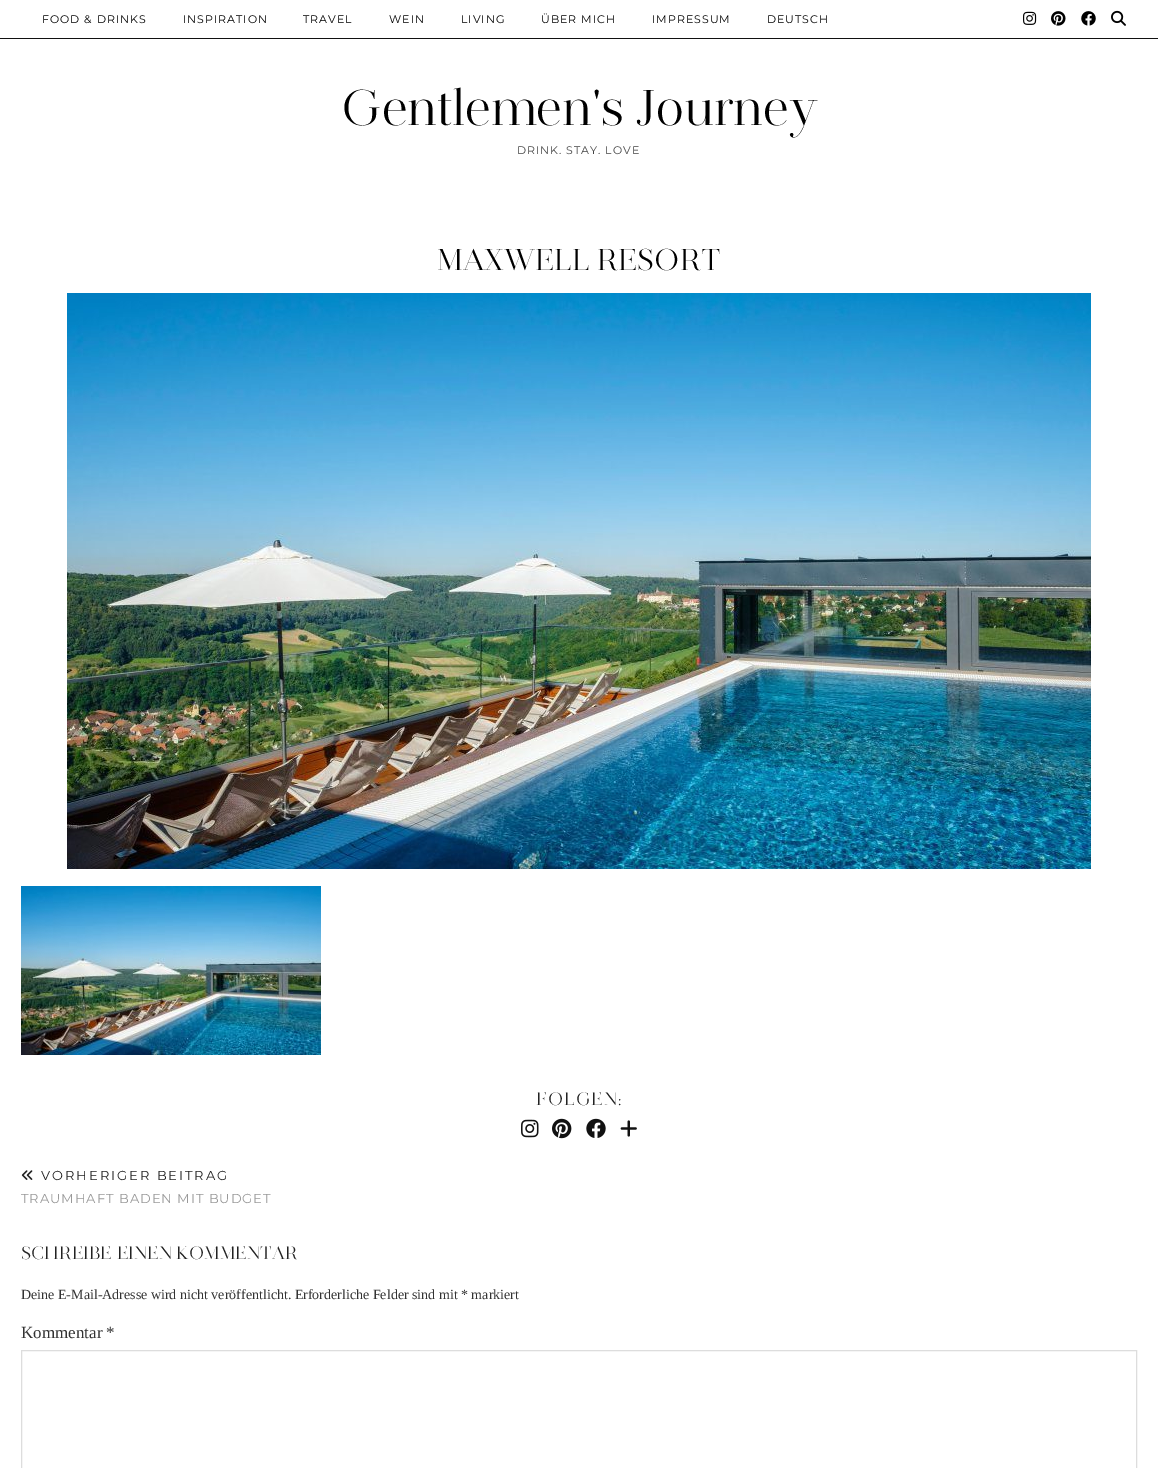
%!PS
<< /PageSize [1158 1468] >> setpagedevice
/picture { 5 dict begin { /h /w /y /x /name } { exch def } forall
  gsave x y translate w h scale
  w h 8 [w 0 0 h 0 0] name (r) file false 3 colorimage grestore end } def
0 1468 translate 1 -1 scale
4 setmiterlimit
1 setgray
0 0 1158 1468 rectfill
0.067 setgray
0 38 1158 1 rectfill
/Montserrat-Thin [11 0 0 -11 0 0] selectfont
0 setgray
42 23 moveto 1 0 (FOOD & DRINKS) ashow
183 23 moveto 1 0 (INSPIRATION) ashow
303 23 moveto 1 0 (TRAVEL) ashow
389 23 moveto 1 0 (WEIN) ashow
461 23 moveto 1 0 (LIVING) ashow
541 23 moveto 1 0 (ÜBER MICH) ashow
652 23 moveto 1 0 (IMPRESSUM) ashow
767 23 moveto 1 0 (DEUTSCH) ashow
(img1.rgb) 1023 11 14 14 picture
(img2.rgb) 1051 11 15 15 picture
(img3.rgb) 1081 11 15 15 picture
(img4.rgb) 1111 10 15 16 picture
/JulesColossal-Regular [50 0 0 -50 0 0] selectfont
341 125 moveto (Gentlemen's Journey) show
/Montserrat-Thin [11 0 0 -11 0 0] selectfont
0.267 setgray
517 154 moveto 1 0 (DRINK. STAY. LOVE) ashow
/JulesColossal-Regular [30 0 0 -30 0 0] selectfont
0 setgray
437 270 moveto (MAXWELL RESORT) show
(img5.rgb) 67 293 1024 576 picture
(img6.rgb) 21 886 300 169 picture
/JulesColossal-Regular [18 0 0 -18 0 0] selectfont
0.133 setgray
536 1105 moveto 1 0 (FOLGEN:) ashow
(img7.rgb) 521 1119 18 19 picture
(img8.rgb) 552 1118 20 21 picture
(img9.rgb) 586 1118 20 20 picture
(img10.rgb) 620 1120 17 17 picture
(img11.rgb) 21 1170 12 10 picture
/Montserrat-Thin [13 0 0 -13 0 0] selectfont
41 1180 moveto 2 0 (VORHERIGER BEITRAG) ashow
0.6 setgray
21 1203 moveto 1 0 (TRAUMHAFT BADEN MIT BUDGET) ashow
/JulesColossal-Regular [18 0 0 -18 0 0] selectfont
0.133 setgray
21 1259 moveto (SCHREIBE EINEN KOMMENTAR) show
/LiberationSerif-Regular [14 0 0 -14 0 0] selectfont
0.2 setgray
21 1299 moveto (Deine E-Mail-Adresse wird nicht veröffentlicht. Erforderliche Felder sind mit * markiert) show
/LiberationSerif-Regular [17 0 0 -17 0 0] selectfont
21 1338 moveto (Kommentar *) show
0.867 setgray
21.5 1350.5 1115 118 rectstroke
showpage
